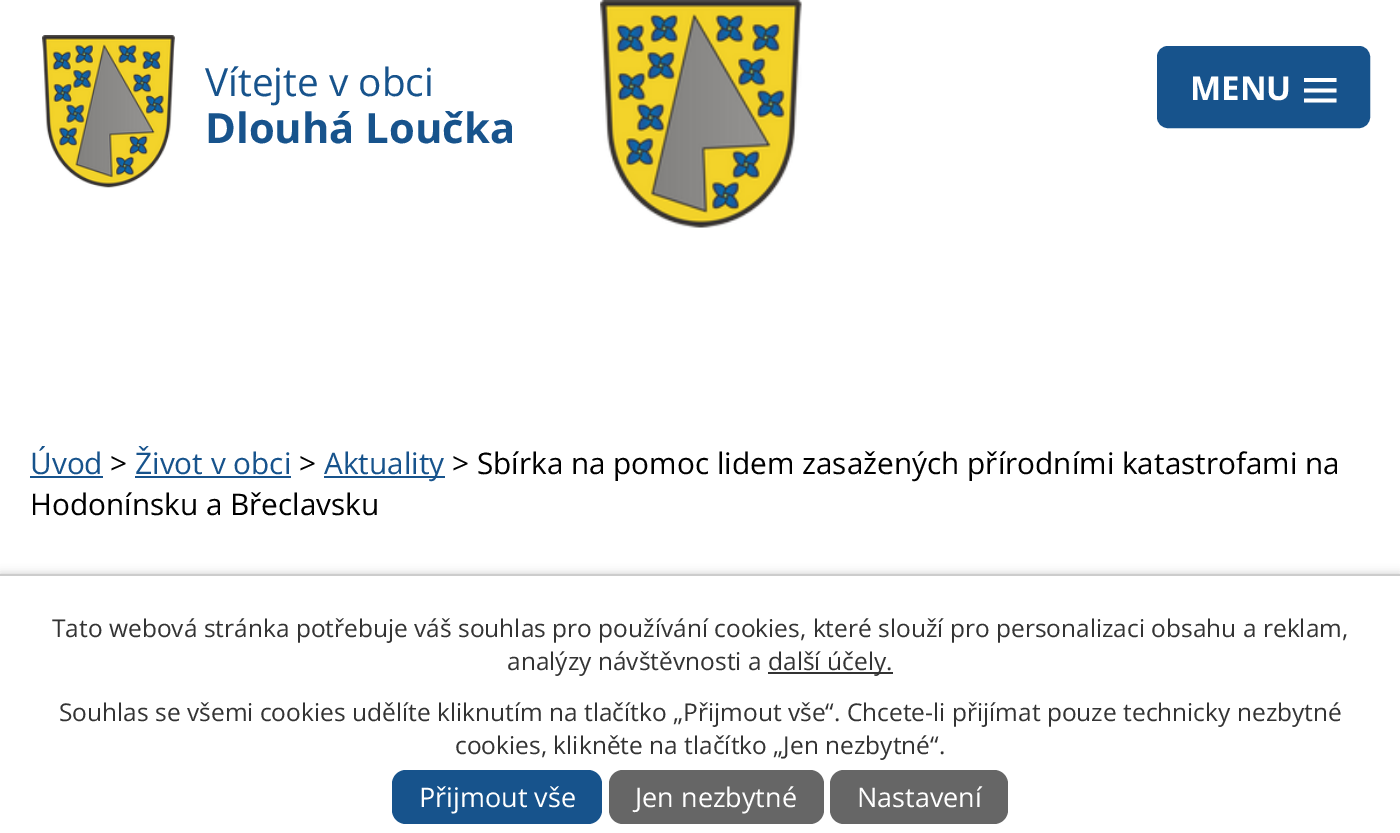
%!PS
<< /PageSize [1400 833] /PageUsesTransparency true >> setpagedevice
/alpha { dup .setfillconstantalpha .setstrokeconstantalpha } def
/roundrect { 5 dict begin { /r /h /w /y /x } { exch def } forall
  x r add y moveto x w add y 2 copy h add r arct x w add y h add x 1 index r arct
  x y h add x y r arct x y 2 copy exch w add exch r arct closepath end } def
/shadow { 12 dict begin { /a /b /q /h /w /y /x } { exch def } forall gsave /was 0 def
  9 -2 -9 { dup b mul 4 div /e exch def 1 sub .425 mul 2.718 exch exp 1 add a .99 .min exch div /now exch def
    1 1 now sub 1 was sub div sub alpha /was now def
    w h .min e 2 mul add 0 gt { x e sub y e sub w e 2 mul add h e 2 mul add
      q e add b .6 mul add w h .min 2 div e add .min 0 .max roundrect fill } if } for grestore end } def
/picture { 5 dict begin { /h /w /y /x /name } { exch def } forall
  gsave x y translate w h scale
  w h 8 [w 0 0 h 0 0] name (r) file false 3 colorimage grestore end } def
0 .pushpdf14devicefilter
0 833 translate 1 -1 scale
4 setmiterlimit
1 setgray
0 0 1400 833 rectfill
(img1.rgb) 600 0 202 228 picture
(img2.rgb) 42 35 133 153 picture
/OpenSans-Regular [38.75 0 0 -38.75 0 0] selectfont
0.09 0.325 0.549 setrgbcolor
205 96 moveto (Vítejte v obci) show
/OpenSans-Bold [41.75 0 0 -41.75 0 0] selectfont
205 143 moveto (Dlouhá Loučka) show
1159 48 209 78 9 roundrect gsave fill grestore
4 setlinewidth
stroke
/OpenSans-Bold [33 0 0 -33 0 0] selectfont
1 setgray
1190 100 moveto (MENU) show
newpath 1304 102.5 moveto 1304 98.5 lineto 1336.5 98.5 lineto 1336.5 102.5 lineto closepath 1304 78 moveto 1336.5 78 lineto 1336.5 82 lineto 1304 82 lineto closepath 1304 92.5 moveto 1304 88.5 lineto 1336.5 88.5 lineto 1336.5 92.5 lineto closepath fill
/OpenSans-Regular [29.75 0 0 -29.75 0 0] selectfont
0.09 0.325 0.549 setrgbcolor
30 474 moveto (Úvod) show
30 476 73 2 rectfill
0 setgray
110 474 moveto (>) show
0.09 0.325 0.549 setrgbcolor
135 474 moveto (Život v obci) show
135 476 156 2 rectfill
0 setgray
299 474 moveto (>) show
0.09 0.325 0.549 setrgbcolor
324 476 121 2 rectfill
324 474 moveto (Aktuality) show
0 setgray
452 474 moveto (> Sbírka na pomoc lidem zasažených přírodními katastrofami na) show
30 515 moveto (Hodonínsku a Břeclavsku) show
0 574 1400 259 0 4.5 0.2 shadow
1 setgray
0 576 1400 257 rectfill
0.8 setgray
0 574 1400 2 rectfill
/OpenSans-Regular [24.5 0 0 -24.5 0 0] selectfont
0.2 setgray
52 637 moveto (Tato webová stránka potřebuje váš souhlas pro používání cookies, které slouží pro personalizaci obsahu a reklam,) show
507 670 moveto (analýzy návštěvnosti a) show
768 672 125 2 rectfill
768 670 moveto (další účely.) show
59 721 moveto (Souhlas se všemi cookies udělíte kliknutím na tlačítko „Přijmout vše“. Chcete-li přijímat pouze technicky nezbytné) show
455 754 moveto (cookies, klikněte na tlačítko „Jen nezbytné“.) show
0.09 0.325 0.549 setrgbcolor
392 770 210 54 14 roundrect fill
/OpenSans-Regular [27 0 0 -27 0 0] selectfont
1 setgray
419 807 moveto (Přijmout vše) show
0.4 setgray
609 770 215 54 14 roundrect fill
1 setgray
635 807 moveto (Jen nezbytné) show
0.4 setgray
830 770 178 54 14 roundrect fill
1 setgray
857 807 moveto (Nastavení) show
.poppdf14devicefilter showpage
